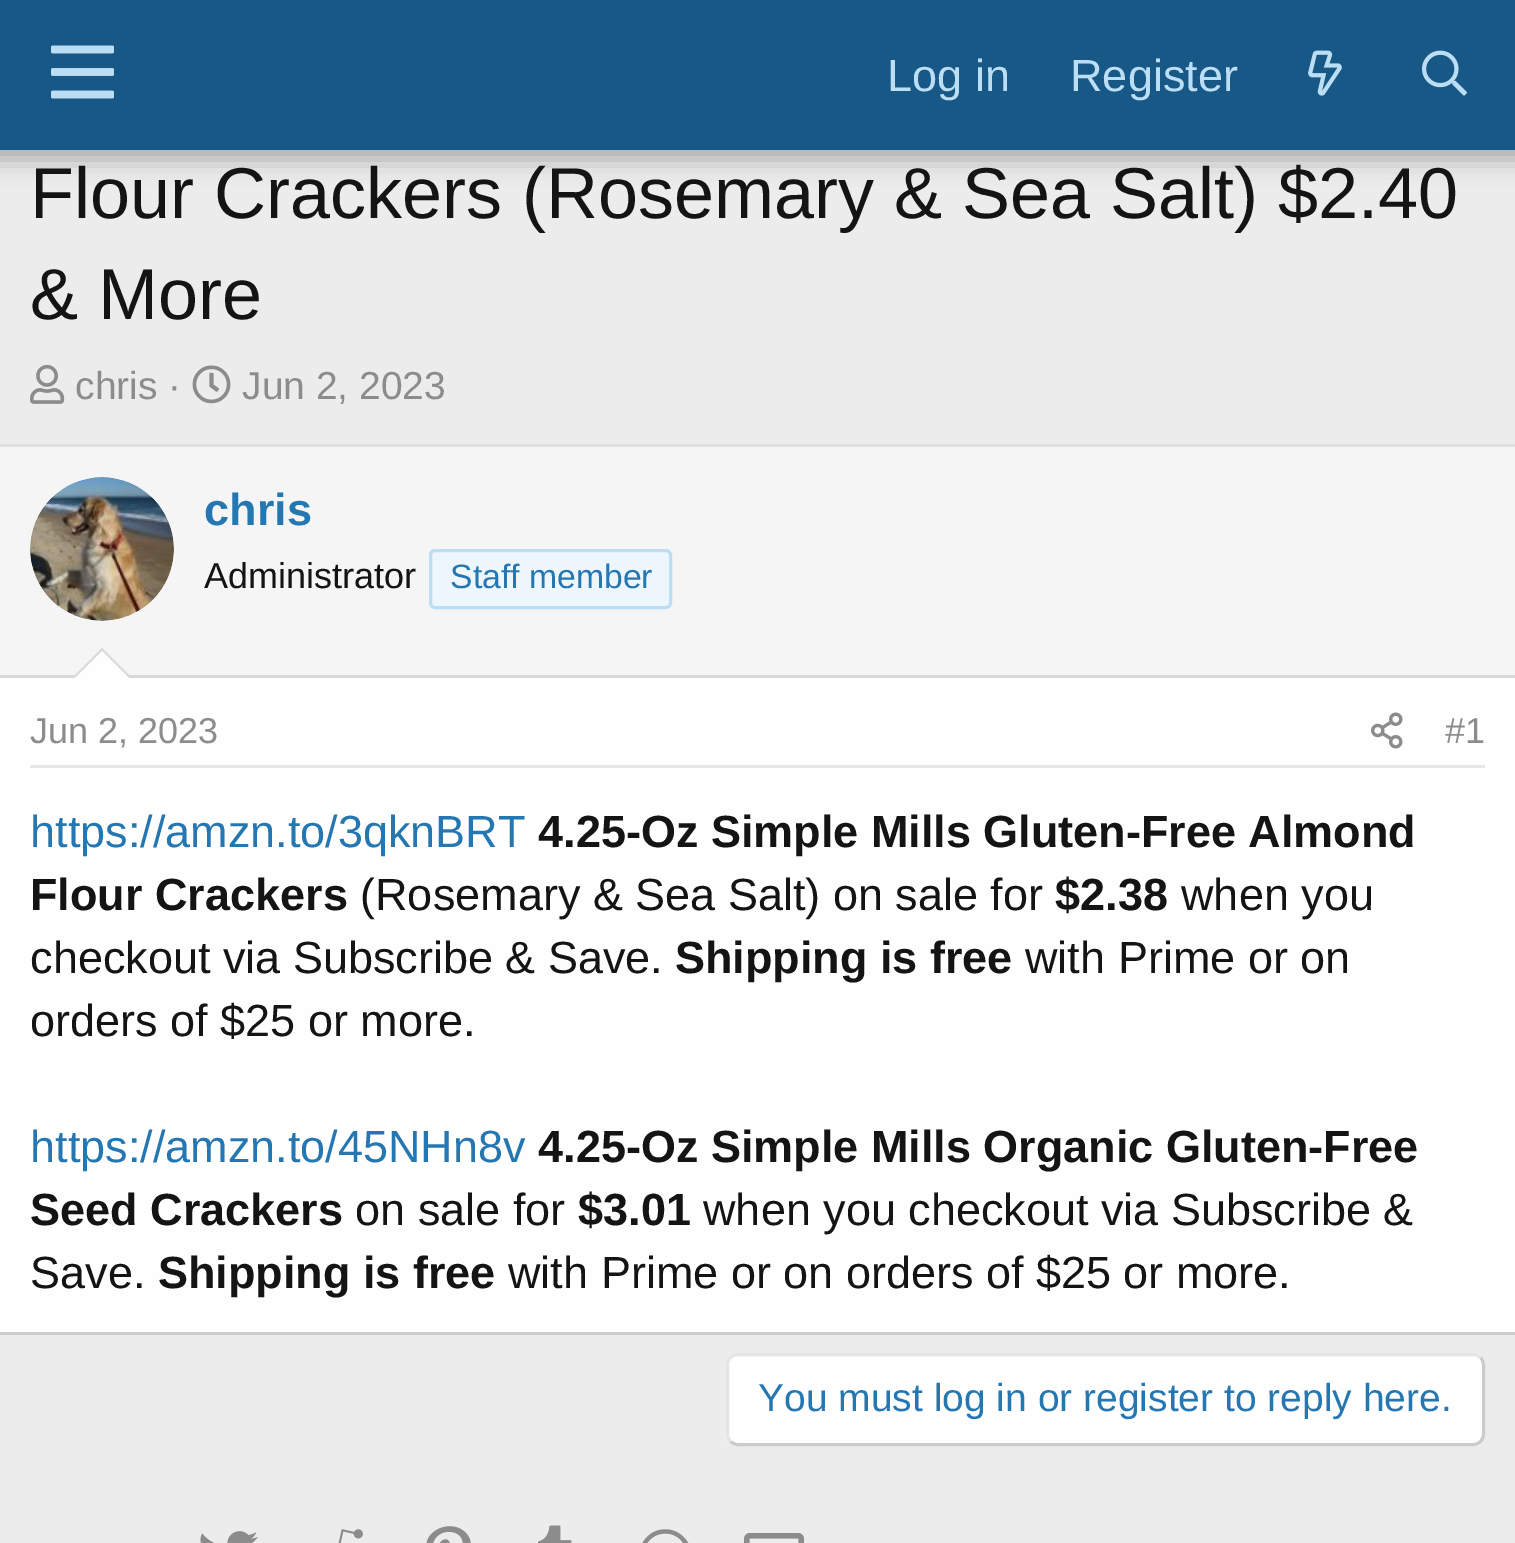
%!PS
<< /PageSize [1515 1543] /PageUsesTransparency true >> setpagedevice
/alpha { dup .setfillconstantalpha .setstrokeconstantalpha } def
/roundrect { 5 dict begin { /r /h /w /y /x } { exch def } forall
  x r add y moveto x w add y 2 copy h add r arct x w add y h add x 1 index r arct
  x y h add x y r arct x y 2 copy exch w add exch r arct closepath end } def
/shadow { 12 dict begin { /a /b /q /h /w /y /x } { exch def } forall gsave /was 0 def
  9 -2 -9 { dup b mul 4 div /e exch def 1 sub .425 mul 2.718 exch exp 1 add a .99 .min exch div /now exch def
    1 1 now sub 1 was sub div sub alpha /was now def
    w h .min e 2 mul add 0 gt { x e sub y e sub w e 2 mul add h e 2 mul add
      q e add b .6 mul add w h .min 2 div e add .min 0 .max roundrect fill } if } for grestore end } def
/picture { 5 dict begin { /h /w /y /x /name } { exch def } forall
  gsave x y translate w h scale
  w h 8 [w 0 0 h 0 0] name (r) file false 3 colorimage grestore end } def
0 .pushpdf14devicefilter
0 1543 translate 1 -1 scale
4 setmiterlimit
0.925 setgray
0 0 1515 1543 rectfill
0 setgray
-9 -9 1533 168 0 12 0.3 shadow
0.094 0.345 0.525 setrgbcolor
0 0 1515 150 rectfill
(img1.rgb) 51 45 63 54 picture
/LiberationSans-Regular [45 0 0 -45 0 0] selectfont
0.737 0.871 0.961 setrgbcolor
887 91 moveto (Log in) show
1070 91 moveto (Register) show
(img2.rgb) 1308 50 34 46 picture
(img3.rgb) 1422 50 45 46 picture
/LiberationSans-Regular [72 0 0 -72 0 0] selectfont
0.078 setgray
30 218 moveto (Flour Crackers \(Rosemary & Sea Salt\) $2.40) show
30 319 moveto (& More) show
(img4.rgb) 30 364 35 40 picture
/LiberationSans-Regular [39 0 0 -39 0 0] selectfont
0.549 setgray
75 399 moveto (chris ·) show
(img5.rgb) 192 365 39 39 picture
242 399 moveto (Jun 2, 2023) show
0.996 setgray
0 678 1515 654 rectfill
0.875 setgray
0 444 1515 3 rectfill
0.796 setgray
0 1332 1515 3 rectfill
0.961 setgray
0 447 1515 228 rectfill
0.847 setgray
0 675 1515 3 rectfill
0.996 setgray
newpath 102 549 72 0 360 arc closepath fill
(img6.rgb) 30 477 144 144 picture
/LiberationSans-Bold [45 0 0 -45 0 0] selectfont
0.145 0.467 0.694 setrgbcolor
204 525 moveto (chris) show
/LiberationSans-Regular [36 0 0 -36 0 0] selectfont
0.078 setgray
204 588 moveto (Administrator) show
0.929 0.965 0.992 setrgbcolor
430.5 550.5 240 57 4.5 roundrect gsave fill grestore
0.737 0.871 0.961 setrgbcolor
3 setlinewidth
stroke
/LiberationSans-Regular [33.75 0 0 -33.75 0 0] selectfont
0.145 0.467 0.694 setrgbcolor
450 588 moveto (Staff member) show
0.847 setgray
newpath 132 678 moveto 72 678 lineto 102 648 lineto closepath fill
0.996 setgray
newpath 129 678 moveto 75 678 lineto 102 651 lineto closepath fill
0.906 setgray
30 765 1455 3 rectfill
/LiberationSans-Regular [36 0 0 -36 0 0] selectfont
0.549 setgray
30 743 moveto (Jun 2, 2023) show
(img7.rgb) 1371 712 32 37 picture
1445 743 moveto (#1) show
/LiberationSans-Regular [45 0 0 -45 0 0] selectfont
0.145 0.467 0.694 setrgbcolor
30 847 moveto (https://amzn.to/3qknBRT) show
/LiberationSans-Bold [45 0 0 -45 0 0] selectfont
0.078 setgray
538 847 moveto (4.25-Oz Simple Mills Gluten-Free Almond) show
30 910 moveto (Flour Crackers) show
/LiberationSans-Regular [45 0 0 -45 0 0] selectfont
360 910 moveto (\(Rosemary & Sea Salt\) on sale for) show
/LiberationSans-Bold [45 0 0 -45 0 0] selectfont
1055 910 moveto ($2.38) show
/LiberationSans-Regular [45 0 0 -45 0 0] selectfont
1181 910 moveto (when you) show
30 973 moveto (checkout via Subscribe & Save.) show
/LiberationSans-Bold [45 0 0 -45 0 0] selectfont
675 973 moveto (Shipping is free) show
/LiberationSans-Regular [45 0 0 -45 0 0] selectfont
1025 973 moveto (with Prime or on) show
30 1036 moveto (orders of $25 or more.) show
0.145 0.467 0.694 setrgbcolor
30 1162 moveto (https://amzn.to/45NHn8v) show
/LiberationSans-Bold [45 0 0 -45 0 0] selectfont
0.078 setgray
538 1162 moveto (4.25-Oz Simple Mills Organic Gluten-Free) show
30 1225 moveto (Seed Crackers) show
/LiberationSans-Regular [45 0 0 -45 0 0] selectfont
355 1225 moveto (on sale for) show
/LiberationSans-Bold [45 0 0 -45 0 0] selectfont
578 1225 moveto ($3.01) show
/LiberationSans-Regular [45 0 0 -45 0 0] selectfont
703 1225 moveto (when you checkout via Subscribe &) show
30 1288 moveto (Save.) show
/LiberationSans-Bold [45 0 0 -45 0 0] selectfont
158 1288 moveto (Shipping is free) show
/LiberationSans-Regular [45 0 0 -45 0 0] selectfont
508 1288 moveto (with Prime or on orders of $25 or more.) show
0.996 setgray
726 1353 759 93 12 roundrect fill
0.796 setgray
newpath 1480.5 1357.5 moveto 1482.5 1359.5 1483.5 1362 1483.5 1365 curveto 1483.5 1434 lineto 1483.5 1437 1482.5 1439.5 1480.5 1441.5 curveto 1478.5 1443.5 1476 1444.5 1473 1444.5 curveto 738 1444.5 lineto 735 1444.5 732.5 1443.5 730.5 1441.5 curveto stroke
0.898 setgray
newpath 730.5 1441.5 moveto 728.5 1439.5 727.5 1437 727.5 1434 curveto 727.5 1365 lineto 727.5 1362 728.5 1359.5 730.5 1357.5 curveto 732.5 1355.5 735 1354.5 738 1354.5 curveto 1473 1354.5 lineto 1476 1354.5 1478.5 1355.5 1480.5 1357.5 curveto stroke
/LiberationSans-Regular [39 0 0 -39 0 0] selectfont
0.145 0.467 0.694 setrgbcolor
758 1411 moveto (You must log in or register to reply here.) show
(img8.rgb) 200 1531 58 12 picture
(img9.rgb) 338 1529 25 14 picture
(img10.rgb) 426 1526 45 17 picture
(img11.rgb) 538 1525 34 18 picture
(img12.rgb) 642 1529 47 14 picture
(img13.rgb) 744 1533 60 10 picture
.poppdf14devicefilter showpage
